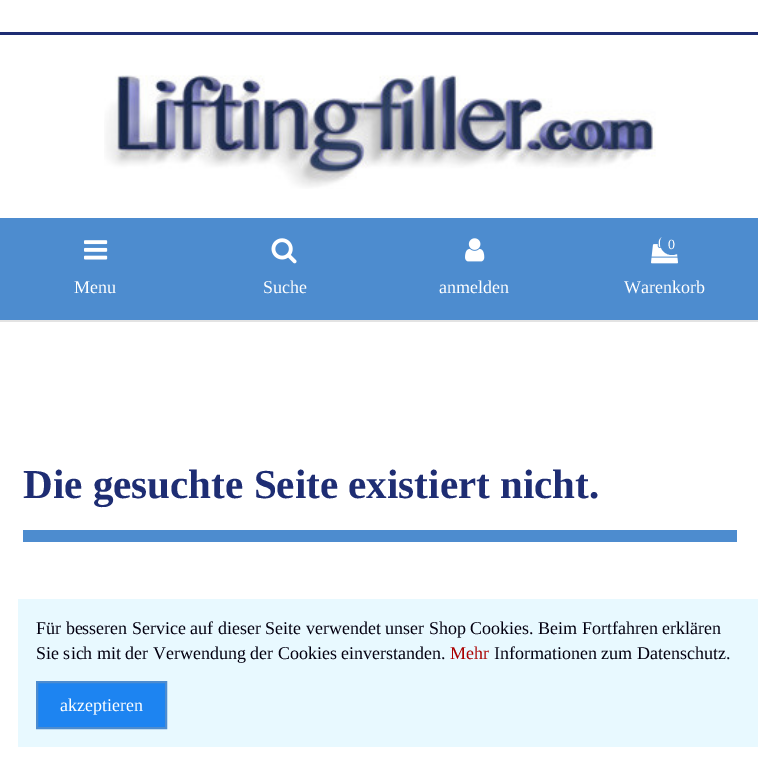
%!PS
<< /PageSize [758 764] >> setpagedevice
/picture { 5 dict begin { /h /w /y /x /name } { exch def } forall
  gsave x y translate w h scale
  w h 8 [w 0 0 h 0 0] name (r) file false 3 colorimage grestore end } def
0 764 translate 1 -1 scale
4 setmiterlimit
1 setgray
0 0 758 764 rectfill
0.118 0.176 0.451 setrgbcolor
0 32 758 3 rectfill
0.89 setgray
0 320 758 2 rectfill
(img1.rgb) 104 75 552 114 picture
0.302 0.549 0.812 setrgbcolor
0 218 758 102 rectfill
(img2.rgb) 84 240 24 20 picture
/LiberationSerif-Regular [18 0 0 -18 0 0] selectfont
1 setgray
74 293 moveto (Menu) show
(img3.rgb) 271 238 26 26 picture
263 293 moveto (Suche) show
(img4.rgb) 465 238 20 24 picture
439 293 moveto (anmelden) show
(img5.rgb) 651 236 27 28 picture
0.302 0.549 0.812 setrgbcolor
newpath 672 243 12 0 360 arc closepath fill
/LiberationSerif-Regular [14 0 0 -14 0 0] selectfont
1 setgray
668 249 moveto (0) show
/LiberationSerif-Regular [18 0 0 -18 0 0] selectfont
624 293 moveto (Warenkorb) show
0.302 0.549 0.812 setrgbcolor
23 530 714 12 rectfill
/LiberationSerif-Bold [41.1 0 0 -41.1 0 0] selectfont
0.118 0.176 0.451 setrgbcolor
23 498 moveto (Die gesuchte Seite existiert nicht.) show
0.91 0.976 1 setrgbcolor
18 599 740 148 rectfill
/LiberationSerif-Regular [18 0 0 -18 0 0] selectfont
0.012 0 0.063 setrgbcolor
36 634 moveto (Für besseren Service auf dieser Seite verwendet unser Shop Cookies. Beim Fortfahren erklären) show
36 659 moveto (Sie sich mit der Verwendung der Cookies einverstanden.) show
0.667 0 0 setrgbcolor
450 659 moveto (Mehr) show
0.012 0 0.063 setrgbcolor
494 659 moveto (Informationen zum Datenschutz.) show
0.114 0.518 0.945 setrgbcolor
newpath 37 682 moveto 166 682 lineto 166 728 lineto 37 728 lineto closepath gsave fill grestore
0.302 0.549 0.812 setrgbcolor
2 setlinewidth
stroke
1 setgray
60 711 moveto (akzeptieren) show
showpage
